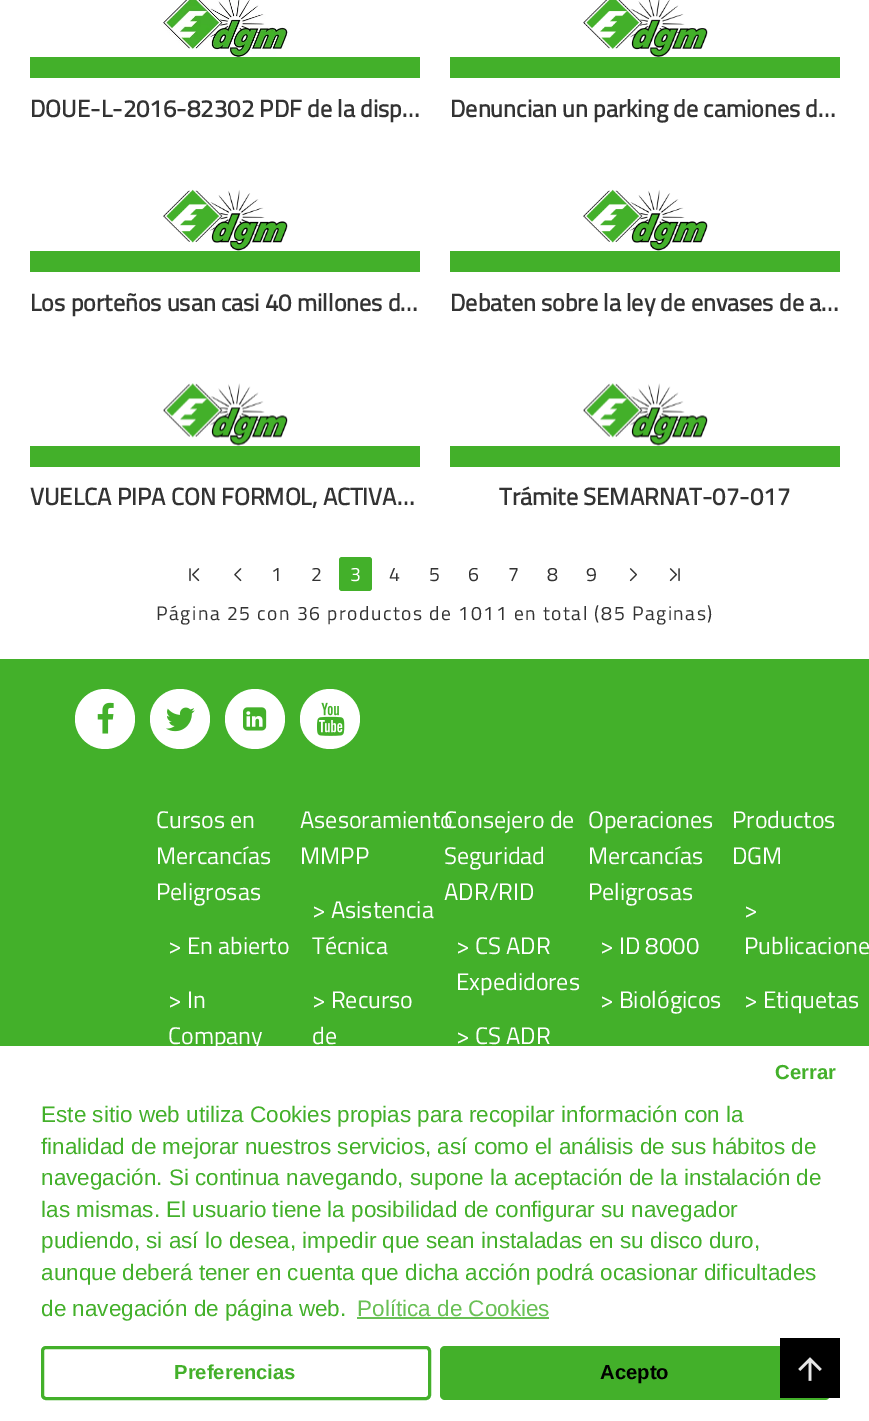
%!PS
<< /PageSize [869 1421] >> setpagedevice
/roundrect { 5 dict begin { /r /h /w /y /x } { exch def } forall
  x r add y moveto x w add y 2 copy h add r arct x w add y h add x 1 index r arct
  x y h add x y r arct x y 2 copy exch w add exch r arct closepath end } def
/picture { 5 dict begin { /h /w /y /x /name } { exch def } forall
  gsave x y translate w h scale
  w h 8 [w 0 0 h 0 0] name (r) file false 3 colorimage grestore end } def
0 1421 translate 1 -1 scale
4 setmiterlimit
1 setgray
0 0 869 1421 rectfill
(img1.rgb) 161 0 128 57 picture
0.263 0.69 0.165 setrgbcolor
30 57 390 21 rectfill
/TitilliumWeb-Bold [24 0 0 -24 0 0] selectfont
0.2 setgray
30 117 moveto (DOUE-L-2016-82302 PDF de la disp…) show
(img2.rgb) 583 0 125 57 picture
0.263 0.69 0.165 setrgbcolor
450 57 390 21 rectfill
0.2 setgray
450 117 moveto (Denuncian un parking de camiones d…) show
(img3.rgb) 163 189 125 62 picture
0.263 0.69 0.165 setrgbcolor
30 251 390 21 rectfill
0.2 setgray
30 311 moveto (Los porteños usan casi 40 millones d…) show
(img3.rgb) 583 189 125 62 picture
0.263 0.69 0.165 setrgbcolor
450 251 390 21 rectfill
0.2 setgray
450 311 moveto (Debaten sobre la ley de envases de a…) show
(img4.rgb) 163 383 125 63 picture
0.263 0.69 0.165 setrgbcolor
30 446 390 21 rectfill
0.2 setgray
30 505 moveto (VUELCA PIPA CON FORMOL, ACTIVA…) show
(img4.rgb) 583 383 125 63 picture
0.263 0.69 0.165 setrgbcolor
450 446 390 21 rectfill
0.2 setgray
499 505 moveto (Trámite SEMARNAT-07-017) show
(img5.rgb) 189 568 11 14 picture
(img6.rgb) 234 568 8 14 picture
/TitilliumWeb-Regular [19.5 0 0 -19.5 0 0] selectfont
271 581 moveto 1.5 0 (1) ashow
311 581 moveto 1.5 0 (2) ashow
0.263 0.69 0.165 setrgbcolor
339 557 33 34 3 roundrect fill
1 setgray
350 581 moveto 1.5 0 (3) ashow
0.2 setgray
389 581 moveto 1.5 0 (4) ashow
429 581 moveto 1.5 0 (5) ashow
468 581 moveto 1.5 0 (6) ashow
508 581 moveto 1.5 0 (7) ashow
547 581 moveto 1.5 0 (8) ashow
586 581 moveto 1.5 0 (9) ashow
(img7.rgb) 629 568 8 14 picture
(img8.rgb) 669 568 11 14 picture
156 620 moveto 1.5 0 (Página 25 con 36 productos de 1011 en total \(85 Paginas\)) ashow
0.263 0.69 0.165 setrgbcolor
0 659 869 387 rectfill
1 setgray
newpath 105 719 30 0 360 arc closepath fill
(img9.rgb) 97 702 17 32 picture
newpath 180 719 30 0 360 arc closepath fill
(img10.rgb) 166 707 29 25 picture
newpath 255 719 30 0 360 arc closepath fill
(img11.rgb) 243 707 24 24 picture
newpath 330 719 30 0 360 arc closepath fill
(img12.rgb) 317 702 28 34 picture
/TitilliumWeb-Regular [24 0 0 -24 0 0] selectfont
156 828 moveto (Cursos en) show
156 864 moveto (Mercancías) show
156 900 moveto (Peligrosas) show
168 954 moveto (> En abierto) show
168 1008 moveto (> In) show
168 1044 moveto (Company) show
300 828 moveto (Asesoramiento) show
300 864 moveto (MMPP) show
312 918 moveto (> Asistencia) show
312 954 moveto (Técnica) show
312 1008 moveto (> Recurso) show
312 1044 moveto (de) show
444 828 moveto (Consejero de) show
444 864 moveto (Seguridad) show
444 900 moveto (ADR/RID) show
456 954 moveto (> CS ADR) show
456 990 moveto (Expedidores) show
456 1044 moveto (> CS ADR) show
588 828 moveto (Operaciones) show
588 864 moveto (Mercancías) show
588 900 moveto (Peligrosas) show
600 954 moveto (> ID 8000) show
600 1008 moveto (> Biológicos) show
732 828 moveto (Productos) show
732 864 moveto (DGM) show
744 918 moveto (>) show
744 954 moveto (Publicacione) show
744 1008 moveto (> Etiquetas) show
/LiberationSans-Bold [20.25 0 0 -20.25 0 0] selectfont
0.263 0.69 0.165 setrgbcolor
775 1079 moveto (Cerrar) show
3 setlinewidth
42.5 1347.5 387 51 3.5 roundrect stroke
174 1379 moveto (Preferencias) show
440 1346 390 54 5 roundrect fill
0 setgray
600 1379 moveto (Acepto) show
/LiberationSans-Regular [22.5 0 0 -22.5 0 0] selectfont
0.263 0.69 0.165 setrgbcolor
41 1122 moveto (Este sitio web utiliza Cookies propias para recopilar información con la) show
41 1154 moveto (finalidad de mejorar nuestros servicios, así como el análisis de sus hábitos de) show
41 1185 moveto (navegación. Si continua navegando, supone la aceptación de la instalación de) show
41 1217 moveto (las mismas. El usuario tiene la posibilidad de configurar su navegador) show
41 1248 moveto (pudiendo, si así lo desea, impedir que sean instaladas en su disco duro,) show
41 1280 moveto (aunque deberá tener en cuenta que dicha acción podrá ocasionar dificultades) show
41 1316 moveto (de navegación de página web.) show
0.412 0.753 0.333 setrgbcolor
357 1316 moveto (Política de Cookies) show
357 1317 192 2 rectfill
0 setgray
780 1338 60 60 rectfill
(img13.rgb) 798 1357 24 24 picture
showpage
